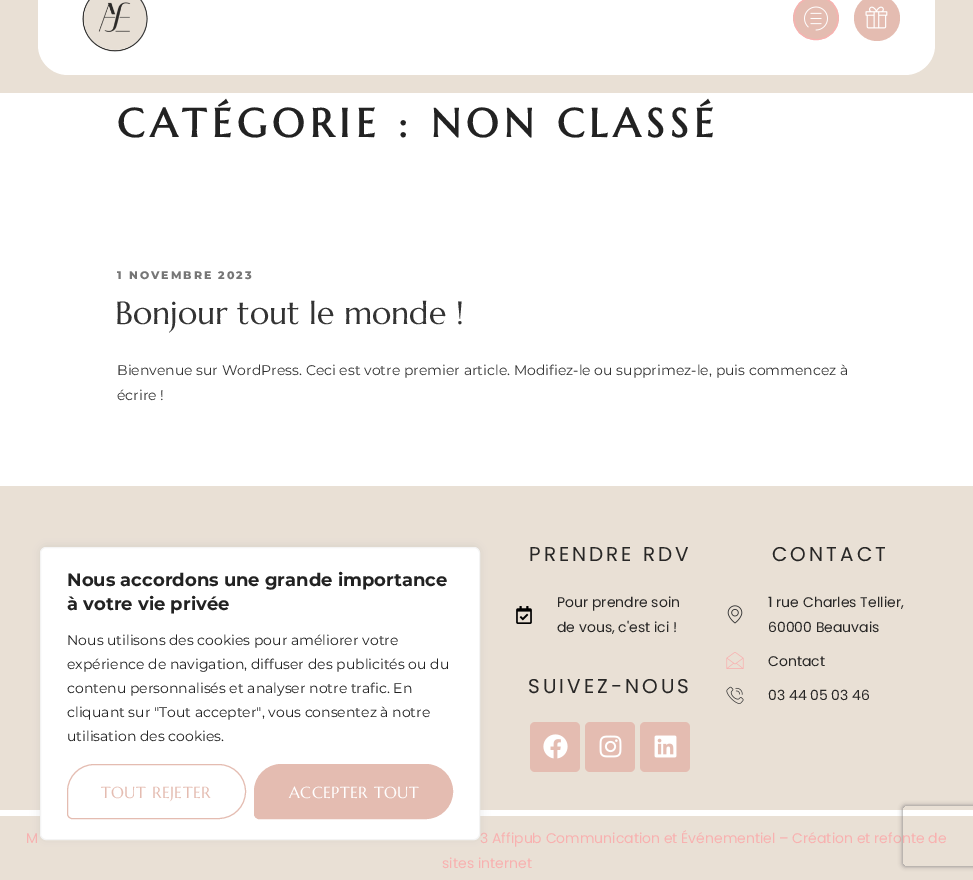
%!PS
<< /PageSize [973 880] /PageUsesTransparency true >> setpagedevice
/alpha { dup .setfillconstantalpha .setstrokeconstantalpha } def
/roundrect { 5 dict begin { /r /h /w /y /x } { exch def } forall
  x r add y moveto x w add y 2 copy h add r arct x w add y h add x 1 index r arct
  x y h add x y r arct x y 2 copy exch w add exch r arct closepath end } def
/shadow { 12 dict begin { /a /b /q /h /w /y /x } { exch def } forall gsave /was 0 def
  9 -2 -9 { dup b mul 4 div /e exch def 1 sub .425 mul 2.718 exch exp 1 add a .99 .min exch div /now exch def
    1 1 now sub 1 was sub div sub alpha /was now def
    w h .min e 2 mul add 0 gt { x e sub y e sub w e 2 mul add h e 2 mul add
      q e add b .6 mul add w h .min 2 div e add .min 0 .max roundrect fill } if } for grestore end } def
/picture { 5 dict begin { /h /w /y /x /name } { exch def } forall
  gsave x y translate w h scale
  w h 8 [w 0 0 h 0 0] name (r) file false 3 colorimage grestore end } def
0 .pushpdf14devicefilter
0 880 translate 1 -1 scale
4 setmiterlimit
1 setgray
0 0 973 880 rectfill
0.914 0.878 0.835 setrgbcolor
0 0 973 93 rectfill
1 setgray
38 -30 897 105 30 roundrect fill
(img1.rgb) 82 0 66 52 picture
0.894 0.737 0.694 setrgbcolor
newpath 816 -4 moveto 828.5 -4 839 6 839 18 curveto 839 30 828.5 40 816 40 curveto 803.5 40 793 30 793 18 curveto 793 6 803.5 -4 816 -4 curveto closepath fill
0.973 0.694 0.69 setrgbcolor
newpath 816 -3.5 moveto 845.5 -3.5 845.5 39.5 816 39.5 curveto 786.5 39.5 786.5 -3.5 816 -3.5 curveto closepath stroke
(img2.rgb) 804 6 24 25 picture
0.894 0.737 0.694 setrgbcolor
newpath 877 18 23 0 360 arc closepath fill
(img3.rgb) 865 6 23 23 picture
/Marcellus-Bold [40 0 0 -40 0 0] selectfont
0.133 setgray
117 137 moveto 5.6 0 (CATÉGORIE : NON CLASSÉ) ashow
/Montserrat-ExtraBold [11 0 0 -11 0 0] selectfont
0.463 setgray
117 279 moveto 2 0 (1 NOVEMBRE 2023) ashow
/Marcellus-Regular [32 0 0 -32 0 0] selectfont
0.2 setgray
115 324 moveto (Bonjour tout le monde !) show
/Montserrat-Regular [14 0 0 -14 0 0] selectfont
117 375 moveto (Bienvenue sur WordPress. Ceci est votre premier article. Modifiez-le ou supprimez-le, puis commencez à) show
117 400 moveto (écrire !) show
0.914 0.878 0.835 setrgbcolor
0 486 973 324 rectfill
/Poppins-Regular [20 0 0 -20 0 0] selectfont
0.157 0.153 0.149 setrgbcolor
529 561 moveto 3 0 (PRENDRE RDV) ashow
(img4.rgb) 516 606 16 18 picture
/Poppins-Regular [14 0 0 -14 0 0] selectfont
557 607 moveto (Pour prendre soin) show
557 632 moveto (de vous, c'est ici !) show
/Poppins-Regular [20 0 0 -20 0 0] selectfont
528 693 moveto 3 0 (SUIVEZ-NOUS) ashow
0.894 0.737 0.694 setrgbcolor
530 722 50 50 5 roundrect fill
(img5.rgb) 543 734 25 25 picture
585 722 50 50 5 roundrect fill
(img6.rgb) 599 735 23 23 picture
640 722 50 50 5 roundrect fill
(img7.rgb) 654 735 23 23 picture
0.157 0.153 0.149 setrgbcolor
772 561 moveto 3 0 (CONTACT) ashow
(img8.rgb) 727 605 16 19 picture
/Poppins-Regular [14 0 0 -14 0 0] selectfont
768 607 moveto (1 rue Charles Tellier,) show
768 632 moveto (60000 Beauvais) show
(img9.rgb) 726 652 18 17 picture
768 666 moveto (Contact) show
(img10.rgb) 726 686 18 18 picture
768 700 moveto (03 44 05 03 46) show
0.914 0.878 0.835 setrgbcolor
0 816 973 64 rectfill
0.973 0.694 0.69 setrgbcolor
26 843 moveto (M) show
480 843 moveto (3 Affipub Communication et Événementiel – Création et refonte de) show
442 868 moveto (sites internet) show
0.675 0.671 0.671 setrgbcolor
40 546 440 293 6 5 0.3 shadow
1 setgray
40.5 547.5 439 292 5.5 roundrect gsave fill grestore
0.957 setgray
stroke
/Montserrat-Bold [18 0 0 -18 0 0] selectfont
0.133 setgray
67 586 moveto (Nous accordons une grande importance) show
67 610 moveto (à votre vie privée) show
/Montserrat-Regular [14 0 0 -14 0 0] selectfont
67 645 moveto (Nous utilisons des cookies pour améliorer votre) show
67 669 moveto (expérience de navigation, diffuser des publicités ou du) show
67 693 moveto (contenu personnalisés et analyser notre trafic. En) show
67 717 moveto (cliquant sur "Tout accepter", vous consentez à notre) show
67 741 moveto (utilisation des cookies.) show
0.894 0.737 0.694 setrgbcolor
newpath 94.5 764.5 moveto 218.5 764.5 lineto 233.5 764.5 245.5 776.5 245.5 791.5 curveto 245.5 806.5 233.5 818.5 218.5 818.5 curveto 72 818.5 lineto 69.5 818.5 67.5 816.5 67.5 814 curveto 67.5 791.5 lineto 67.5 776.5 79.5 764.5 94.5 764.5 curveto closepath stroke
/Marcellus-Regular [16 0 0 -16 0 0] selectfont
101 798 moveto 0.5 0 (TOUT REJETER) ashow
newpath 281.5 764.5 moveto 425.5 764.5 lineto 440.5 764.5 452.5 776.5 452.5 791.5 curveto 452.5 806.5 440.5 818.5 425.5 818.5 curveto 259 818.5 lineto 256.5 818.5 254.5 816.5 254.5 814 curveto 254.5 791.5 lineto 254.5 776.5 266.5 764.5 281.5 764.5 curveto closepath gsave fill grestore
stroke
1 setgray
289 798 moveto 0.5 0 (ACCEPTER TOUT) ashow
gsave
newpath 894 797 moveto 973 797 lineto 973 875 lineto 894 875 lineto closepath 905 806 moveto 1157 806 lineto 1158 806 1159 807 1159 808 curveto 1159 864 lineto 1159 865 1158 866 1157 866 curveto 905 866 lineto 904 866 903 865 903 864 curveto 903 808 lineto 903 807 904 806 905 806 curveto closepath eoclip newpath
0.502 setgray
903 806 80 60 2 2.5 1 shadow
grestore
.poppdf14devicefilter showpage
